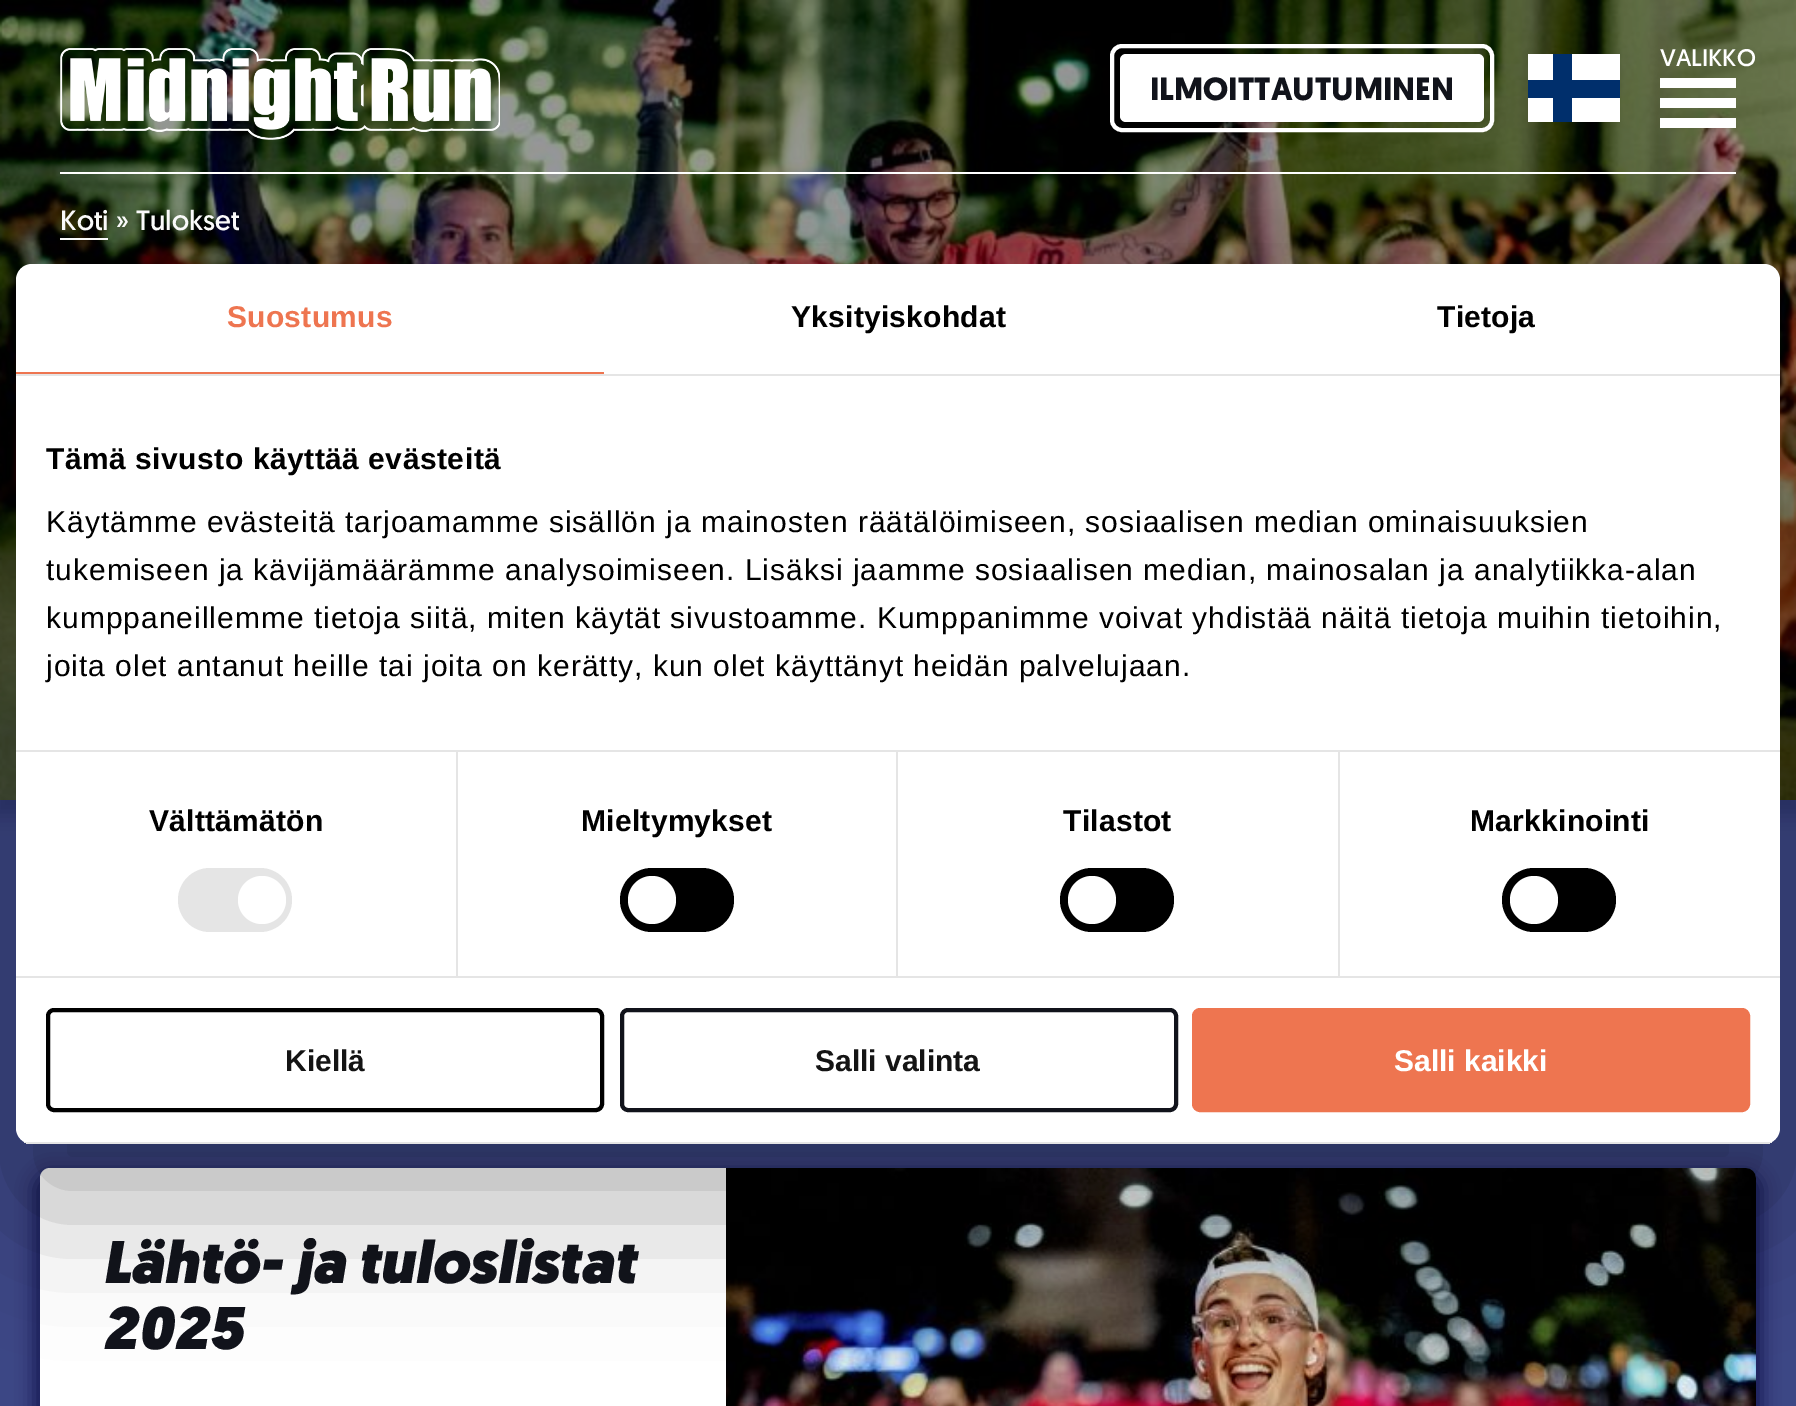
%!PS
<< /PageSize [1796 1406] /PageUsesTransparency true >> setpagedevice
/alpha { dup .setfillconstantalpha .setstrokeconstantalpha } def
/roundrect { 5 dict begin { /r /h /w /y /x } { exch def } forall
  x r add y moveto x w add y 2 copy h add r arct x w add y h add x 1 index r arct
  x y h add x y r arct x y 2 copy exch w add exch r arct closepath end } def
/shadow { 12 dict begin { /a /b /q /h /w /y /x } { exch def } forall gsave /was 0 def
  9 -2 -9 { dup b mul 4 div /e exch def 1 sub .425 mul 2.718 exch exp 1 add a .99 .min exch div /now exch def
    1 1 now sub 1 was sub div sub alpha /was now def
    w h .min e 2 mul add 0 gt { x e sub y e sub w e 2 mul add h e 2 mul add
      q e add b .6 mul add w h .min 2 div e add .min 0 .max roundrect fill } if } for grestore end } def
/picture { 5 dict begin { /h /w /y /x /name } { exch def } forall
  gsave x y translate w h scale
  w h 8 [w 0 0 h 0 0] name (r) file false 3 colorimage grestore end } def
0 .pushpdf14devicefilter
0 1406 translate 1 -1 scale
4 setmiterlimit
0.235 0.278 0.522 setrgbcolor
0 0 1796 1406 rectfill
0.047 0.055 0.271 setrgbcolor
-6 4 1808 812 0 9 0.3 shadow
(img2.rgb) 0 0 1796 800 picture
1 setgray
60 172 1676 2 rectfill
(img1.rgb) 60 48 440 92 picture
4 setlinewidth
1112 46 380 84 10 roundrect stroke
1120 54 364 68 6 roundrect fill
/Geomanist-Bold [32 0 0 -32 0 0] selectfont
0.067 0.075 0.106 setrgbcolor
1150 100 moveto (ILMOITTAUTUMINEN) show
1 setgray
1528 54 92 68 rectfill
0 0.184 0.424 setrgbcolor
1528 80 92 18 rectfill
1553 54 19 68 rectfill
/Geomanist-Regular [24 0 0 -24 0 0] selectfont
1 setgray
1660 66 moveto (VALIKKO) show
1660 78 76 10 rectfill
1660 98 76 10 rectfill
1660 118 76 10 rectfill
/Geomanist-Regular [28 0 0 -28 0 0] selectfont
60 230 moveto (Koti » Tulokset) show
60 238 48 2 rectfill
0.047 0.055 0.271 setrgbcolor
34 1172 1728 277 16 9 0.8 shadow
1 setgray
newpath 50 1168 moveto 726 1168 lineto 726 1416 lineto 50 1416 lineto 44.5 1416 40 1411.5 40 1406 curveto 40 1178 lineto 40 1172.5 44.5 1168 50 1168 curveto closepath fill
/Geomanist-BlackItalic [60 0 0 -60 0 0] selectfont
0.067 0.075 0.106 setrgbcolor
102 1283 moveto (Lähtö- ja tuloslistat) show
102 1349 moveto (2025) show
(img3.rgb) 726 1168 1030 238 picture
0 setgray
16 328 1764 880 16 68 0.3 shadow
1 setgray
16 264 1764 880 16 roundrect fill
0.898 setgray
16 374 1764 2 rectfill
0.933 0.459 0.314 setrgbcolor
16 372 588 2 rectfill
/LiberationSans-Bold [30 0 0 -30 0 0] selectfont
227 327 moveto 0.25 0 (Suostumus) ashow
0 setgray
791 327 moveto 0.25 0 (Yksityiskohdat) ashow
1437 327 moveto 0.25 0 (Tietoja) ashow
0.898 setgray
16 750 1764 2 rectfill
0 setgray
46 469 moveto 0.5 0 (Tämä sivusto käyttää evästeitä) ashow
/LiberationSans-Regular [30 0 0 -30 0 0] selectfont
46 532 moveto 1 0 (Käytämme evästeitä tarjoamamme sisällön ja mainosten räätälöimiseen, sosiaalisen median ominaisuuksien) ashow
46 580 moveto 1 0 (tukemiseen ja kävijämäärämme analysoimiseen. Lisäksi jaamme sosiaalisen median, mainosalan ja analytiikka-alan) ashow
46 628 moveto 1 0 (kumppaneillemme tietoja siitä, miten käytät sivustoamme. Kumppanimme voivat yhdistää näitä tietoja muihin tietoihin,) ashow
46 676 moveto 1 0 (joita olet antanut heille tai joita on kerätty, kun olet käyttänyt heidän palvelujaan.) ashow
0.898 setgray
16 976 1764 2 rectfill
456 752 2 224 rectfill
/LiberationSans-Bold [30 0 0 -30 0 0] selectfont
0 setgray
149 831 moveto 0.25 0 (Välttämätön) ashow
0.898 setgray
178 868 114 64 32 roundrect fill
1 setgray
newpath 262 900 24 0 360 arc closepath fill
0.898 setgray
896 752 2 224 rectfill
0 setgray
581 831 moveto 0.25 0 (Mieltymykset) ashow
620 868 114 64 32 roundrect fill
1 setgray
newpath 652 900 24 0 360 arc closepath fill
0.898 setgray
1338 752 2 224 rectfill
0 setgray
1063 831 moveto 0.25 0 (Tilastot) ashow
1060 868 114 64 32 roundrect fill
1 setgray
newpath 1092 900 24 0 360 arc closepath fill
0 setgray
1470 831 moveto 0.25 0 (Markkinointi) ashow
1502 868 114 64 32 roundrect fill
1 setgray
newpath 1534 900 24 0 360 arc closepath fill
gsave
16 264 1764 880 16 roundrect clip newpath
0.898 setgray
16 1142 1764 2 rectfill
grestore
0 setgray
48 1010 554 100 6 roundrect stroke
0.078 setgray
285 1071 moveto (Kiellä) show
0.067 0.075 0.106 setrgbcolor
622 1010 554 100 6 roundrect stroke
0.078 setgray
815 1071 moveto (Salli valinta) show
0.933 0.459 0.314 setrgbcolor
1194 1010 554 100 6 roundrect gsave fill grestore
stroke
1 setgray
1394 1071 moveto (Salli kaikki) show
.poppdf14devicefilter showpage
